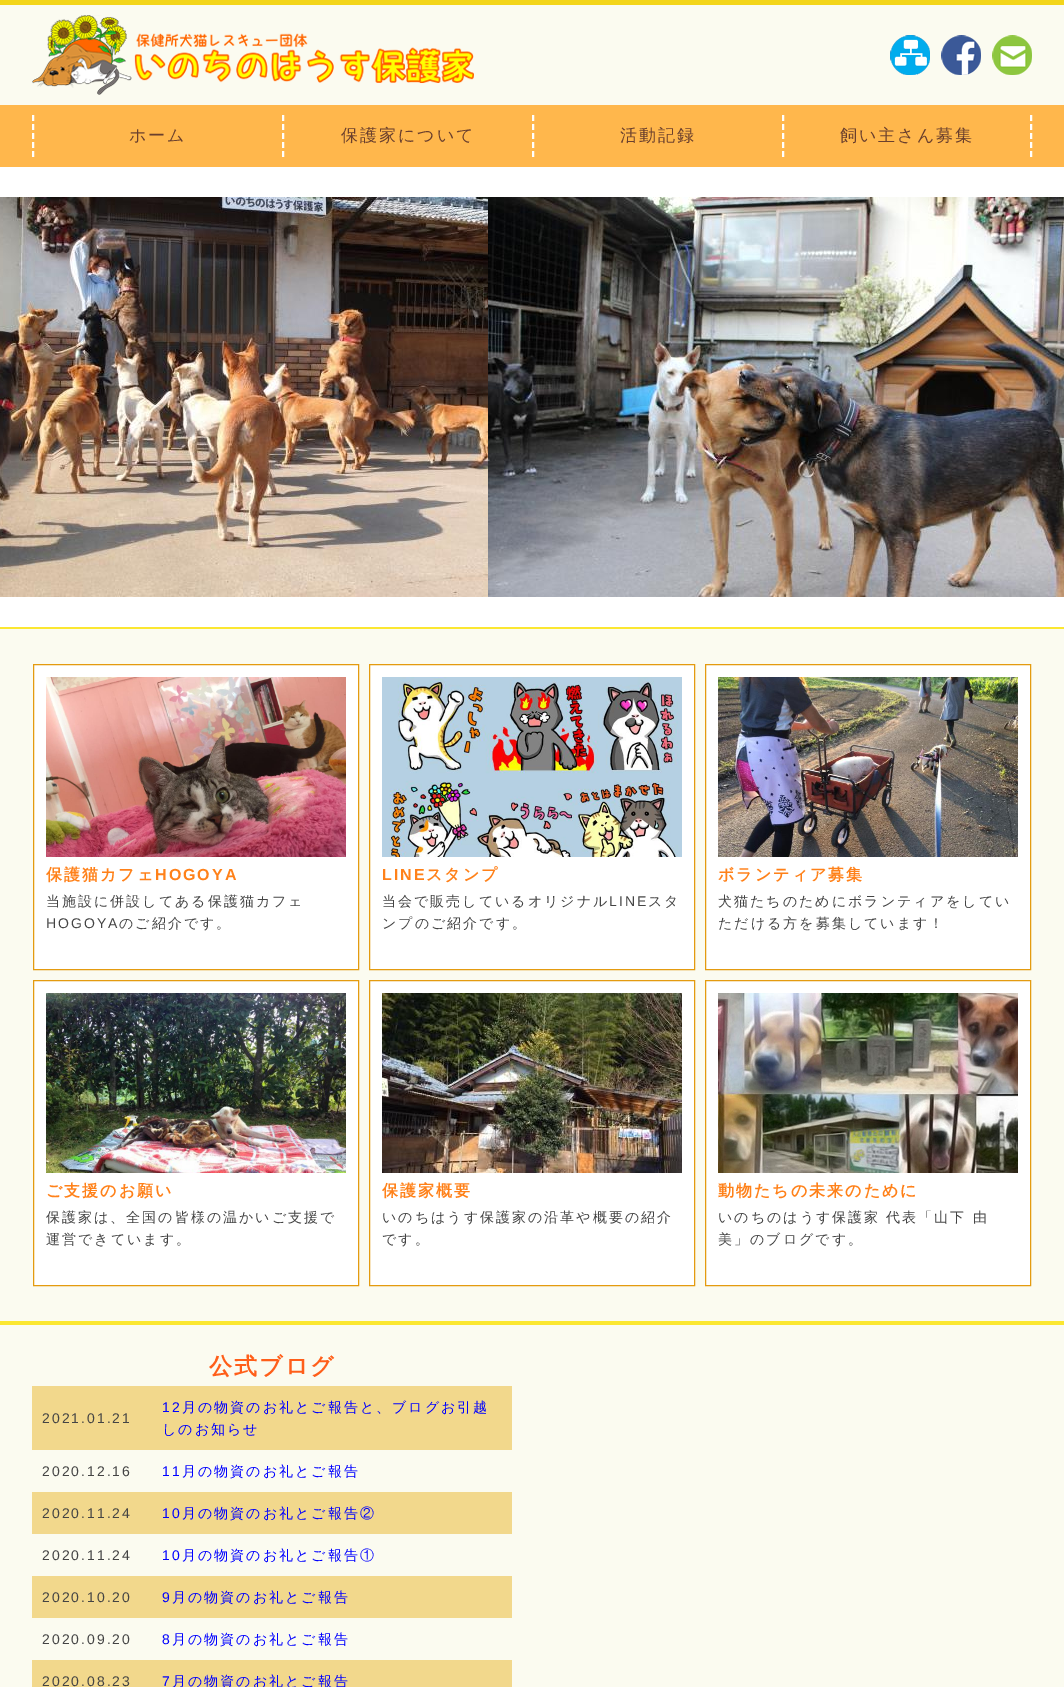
%!PS
<< /PageSize [1064 1687] >> setpagedevice
/picture { 5 dict begin { /h /w /y /x /name } { exch def } forall
  gsave x y translate w h scale
  w h 8 [w 0 0 h 0 0] name (r) file false 3 colorimage grestore end } def
0 1687 translate 1 -1 scale
4 setmiterlimit
1 setgray
0 0 1064 1687 rectfill
0.984 0.984 0.941 setrgbcolor
0 5 1064 100 rectfill
0.953 0.835 0.102 setrgbcolor
0 0 1064 5 rectfill
(img1.rgb) 32 15 442 80 picture
(img2.rgb) 890 35 40 40 picture
(img3.rgb) 941 35 40 40 picture
(img4.rgb) 992 35 40 40 picture
1 0.718 0.298 setrgbcolor
0 105 1064 62 rectfill
1 setgray
2 setlinewidth
[6 3] 0 setdash
newpath 33 115 moveto 33 157 lineto stroke
/WenQuanYiZenHei-Medium [17 0 0 -17 0 0] selectfont
0.42 0.251 0.176 setrgbcolor
129 141 moveto 2 0 (ホーム) ashow
1 setgray
newpath 283 115 moveto 283 157 lineto stroke
0.42 0.251 0.176 setrgbcolor
341 141 moveto 2 0 (保護家について) ashow
1 setgray
newpath 533 115 moveto 533 157 lineto stroke
0.42 0.251 0.176 setrgbcolor
620 141 moveto 2 0 (活動記録) ashow
1 setgray
newpath 1031 115 moveto 1031 157 lineto stroke
newpath 783 115 moveto 783 157 lineto stroke
0.42 0.251 0.176 setrgbcolor
840 141 moveto 2 0 (飼い主さん募集) ashow
(img5.rgb) 0 197 488 400 picture
(img6.rgb) 488 197 576 400 picture
0.984 0.984 0.941 setrgbcolor
0 629 1064 692 rectfill
0.984 0.906 0.192 setrgbcolor
0 627 1064 2 rectfill
0 1321 1064 4 rectfill
1 setgray
newpath 33.5 664.5 moveto 358.5 664.5 lineto 358.5 969.5 lineto 33.5 969.5 lineto closepath gsave fill grestore
0.894 0.608 0.059 setrgbcolor
1 setlinewidth
[] 0 setdash
stroke
(img7.rgb) 46 677 300 180 picture
/WenQuanYiZenHei-Bold [16 0 0 -16 0 0] selectfont
1 0.506 0.098 setrgbcolor
46 880 moveto 2 0 (保護猫カフェ) ashow
/LiberationSans-Bold [16 0 0 -16 0 0] selectfont
155 880 moveto 2 0 (HOGOYA) ashow
/WenQuanYiZenHei-Medium [14 0 0 -14 0 0] selectfont
0.267 setgray
46 906 moveto 2 0 (当施設に併設してある保護猫カフェ) ashow
/LiberationSans-Regular [14 0 0 -14 0 0] selectfont
46 928 moveto 2 0 (HOGOYA) ashow
/WenQuanYiZenHei-Medium [14 0 0 -14 0 0] selectfont
119 928 moveto 2 0 (のご紹介です。) ashow
1 setgray
newpath 369.5 664.5 moveto 694.5 664.5 lineto 694.5 969.5 lineto 369.5 969.5 lineto closepath gsave fill grestore
0.894 0.608 0.059 setrgbcolor
stroke
(img8.rgb) 382 677 300 180 picture
/LiberationSans-Bold [16 0 0 -16 0 0] selectfont
1 0.506 0.098 setrgbcolor
382 880 moveto 2 0 (LINE) ashow
/WenQuanYiZenHei-Bold [16 0 0 -16 0 0] selectfont
426 880 moveto 2 0 (スタンプ) ashow
/WenQuanYiZenHei-Medium [14 0 0 -14 0 0] selectfont
0.267 setgray
382 906 moveto 2 0 (当会で販売しているオリジナル) ashow
/LiberationSans-Regular [14 0 0 -14 0 0] selectfont
609 906 moveto 2 0 (LINE) ashow
/WenQuanYiZenHei-Medium [14 0 0 -14 0 0] selectfont
648 906 moveto 2 0 (スタ) ashow
382 928 moveto 2 0 (ンプのご紹介です。) ashow
1 setgray
newpath 705.5 664.5 moveto 1030.5 664.5 lineto 1030.5 969.5 lineto 705.5 969.5 lineto closepath gsave fill grestore
0.894 0.608 0.059 setrgbcolor
stroke
(img9.rgb) 718 677 300 180 picture
/WenQuanYiZenHei-Bold [16 0 0 -16 0 0] selectfont
1 0.506 0.098 setrgbcolor
718 880 moveto 2 0 (ボランティア募集) ashow
/WenQuanYiZenHei-Medium [14 0 0 -14 0 0] selectfont
0.267 setgray
718 906 moveto 2 0 (犬猫たちのためにボランティアをしてい) ashow
718 928 moveto 2 0 (ただける方を募集しています！) ashow
1 setgray
newpath 33.5 980.5 moveto 358.5 980.5 lineto 358.5 1285.5 lineto 33.5 1285.5 lineto closepath gsave fill grestore
0.894 0.608 0.059 setrgbcolor
stroke
(img10.rgb) 46 993 300 180 picture
/WenQuanYiZenHei-Bold [16 0 0 -16 0 0] selectfont
1 0.506 0.098 setrgbcolor
46 1196 moveto 2 0 (ご支援のお願い) ashow
/WenQuanYiZenHei-Medium [14 0 0 -14 0 0] selectfont
0.267 setgray
46 1222 moveto 2 0 (保護家は、全国の皆様の温かいご支援で) ashow
46 1244 moveto 2 0 (運営できています。) ashow
1 setgray
newpath 369.5 980.5 moveto 694.5 980.5 lineto 694.5 1285.5 lineto 369.5 1285.5 lineto closepath gsave fill grestore
0.894 0.608 0.059 setrgbcolor
stroke
(img11.rgb) 382 993 300 180 picture
/WenQuanYiZenHei-Bold [16 0 0 -16 0 0] selectfont
1 0.506 0.098 setrgbcolor
382 1196 moveto 2 0 (保護家概要) ashow
/WenQuanYiZenHei-Medium [14 0 0 -14 0 0] selectfont
0.267 setgray
382 1222 moveto 2 0 (いのちはうす保護家の沿革や概要の紹介) ashow
382 1244 moveto 2 0 (です。) ashow
1 setgray
newpath 705.5 980.5 moveto 1030.5 980.5 lineto 1030.5 1285.5 lineto 705.5 1285.5 lineto closepath gsave fill grestore
0.894 0.608 0.059 setrgbcolor
stroke
(img12.rgb) 718 993 300 180 picture
/WenQuanYiZenHei-Bold [16 0 0 -16 0 0] selectfont
1 0.506 0.098 setrgbcolor
718 1196 moveto 2 0 (動物たちの未来のために) ashow
/WenQuanYiZenHei-Medium [14 0 0 -14 0 0] selectfont
0.267 setgray
718 1222 moveto 2 0 (いのちのはうす保護家 代表「山下 由) ashow
718 1244 moveto 2 0 (美」のブログです。) ashow
0.984 0.984 0.941 setrgbcolor
0 1325 1064 362 rectfill
/WenQuanYiZenHei-Bold [23 0 0 -23 0 0] selectfont
1 0.369 0.098 setrgbcolor
209 1374 moveto 2 0 (公式ブログ) ashow
0.949 0.847 0.549 setrgbcolor
32 1386 480 64 rectfill
/LiberationSans-Regular [14 0 0 -14 0 0] selectfont
0.267 setgray
42 1423 moveto 2 0 (2021.01.21) ashow
0 0 1 setrgbcolor
162 1412 moveto 2 0 (12) ashow
/WenQuanYiZenHei-Medium [14 0 0 -14 0 0] selectfont
182 1412 moveto 2 0 (月の物資のお礼とご報告と、ブログお引越) ashow
162 1434 moveto 2 0 (しのお知らせ) ashow
/LiberationSans-Regular [14 0 0 -14 0 0] selectfont
0.267 setgray
42 1476 moveto 2 0 (2020.12.16) ashow
0 0 1 setrgbcolor
162 1476 moveto 2 0 (11) ashow
/WenQuanYiZenHei-Medium [14 0 0 -14 0 0] selectfont
182 1476 moveto 2 0 (月の物資のお礼とご報告) ashow
0.949 0.847 0.549 setrgbcolor
32 1492 480 42 rectfill
/LiberationSans-Regular [14 0 0 -14 0 0] selectfont
0.267 setgray
42 1518 moveto 2 0 (2020.11.24) ashow
0 0 1 setrgbcolor
162 1518 moveto 2 0 (10) ashow
/WenQuanYiZenHei-Medium [14 0 0 -14 0 0] selectfont
182 1518 moveto 2 0 (月の物資のお礼とご報告②) ashow
/LiberationSans-Regular [14 0 0 -14 0 0] selectfont
0.267 setgray
42 1560 moveto 2 0 (2020.11.24) ashow
0 0 1 setrgbcolor
162 1560 moveto 2 0 (10) ashow
/WenQuanYiZenHei-Medium [14 0 0 -14 0 0] selectfont
182 1560 moveto 2 0 (月の物資のお礼とご報告①) ashow
0.949 0.847 0.549 setrgbcolor
32 1576 480 42 rectfill
/LiberationSans-Regular [14 0 0 -14 0 0] selectfont
0.267 setgray
42 1602 moveto 2 0 (2020.10.20) ashow
0 0 1 setrgbcolor
162 1602 moveto 2 0 (9) ashow
/WenQuanYiZenHei-Medium [14 0 0 -14 0 0] selectfont
172 1602 moveto 2 0 (月の物資のお礼とご報告) ashow
/LiberationSans-Regular [14 0 0 -14 0 0] selectfont
0.267 setgray
42 1644 moveto 2 0 (2020.09.20) ashow
0 0 1 setrgbcolor
162 1644 moveto 2 0 (8) ashow
/WenQuanYiZenHei-Medium [14 0 0 -14 0 0] selectfont
172 1644 moveto 2 0 (月の物資のお礼とご報告) ashow
0.949 0.847 0.549 setrgbcolor
32 1660 480 27 rectfill
/LiberationSans-Regular [14 0 0 -14 0 0] selectfont
0.267 setgray
42 1686 moveto 2 0 (2020.08.23) ashow
0 0 1 setrgbcolor
162 1686 moveto 2 0 (7) ashow
/WenQuanYiZenHei-Medium [14 0 0 -14 0 0] selectfont
172 1686 moveto 2 0 (月の物資のお礼とご報告) ashow
showpage
